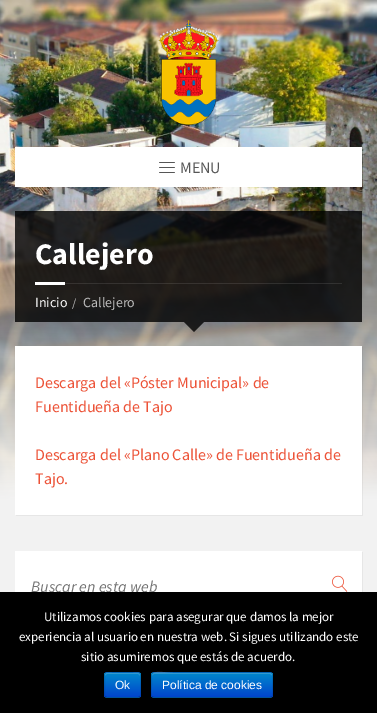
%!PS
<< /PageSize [377 713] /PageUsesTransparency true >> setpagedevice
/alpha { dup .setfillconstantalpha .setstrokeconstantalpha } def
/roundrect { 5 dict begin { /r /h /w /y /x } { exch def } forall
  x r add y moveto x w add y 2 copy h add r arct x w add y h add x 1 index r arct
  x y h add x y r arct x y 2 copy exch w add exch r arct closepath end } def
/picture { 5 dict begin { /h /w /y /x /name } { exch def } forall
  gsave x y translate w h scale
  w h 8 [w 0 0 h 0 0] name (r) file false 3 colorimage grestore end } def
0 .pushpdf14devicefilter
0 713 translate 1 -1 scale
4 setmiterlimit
0.949 setgray
0 0 377 713 rectfill
(img1.rgb) 0 0 377 500 picture
(img2.rgb) 158 20 61 105 picture
1 setgray
15 147 347 40 rectfill
(img3.rgb) 159 162 16 11 picture
/SourceSansPro-Regular [16 0 0 -16 0 0] selectfont
0.337 setgray
180 173 moveto (MENU) show
0.8 alpha
0 setgray
15 211 347 111 rectfill
0.1 alpha
1 setgray
65 283 277 1 rectfill
/SourceSansPro-Bold [30 0 0 -30 0 0] selectfont
1 alpha
35 264 moveto (Callejero) show
35 282 30 3 rectfill
/SourceSansPro-Regular [14 0 0 -14 0 0] selectfont
35 307 moveto (Inicio) show
/SourceSansPro-Regular [12 0 0 -12 0 0] selectfont
0.745 setgray
72 307 moveto (/) show
/SourceSansPro-Regular [14 0 0 -14 0 0] selectfont
83 307 moveto (Callejero) show
0.8 alpha
0 setgray
newpath 184 322 moveto 204 322 lineto 194 332 lineto closepath fill
0.05 alpha
newpath 16 515 moveto 16 516 lineto 363 516 lineto 363 347 lineto 362 347 lineto 362 515 lineto closepath fill
1 alpha
1 setgray
15 346 347 169 rectfill
/SourceSansPro-Regular [16 0 0 -16 0 0] selectfont
0.925 0.322 0.216 setrgbcolor
35 388 moveto (Descarga del «Póster Municipal» de) show
35 412 moveto (Fuentidueña de Tajo) show
35 460 moveto (Descarga del «Plano Calle» de Fuentidueña de) show
35 484 moveto (Tajo.) show
0.902 setgray
newpath 16 611 moveto 16 612 lineto 363 612 lineto 363 552 lineto 362 552 lineto 362 611 lineto closepath fill
1 setgray
15 551 347 41 rectfill
/SourceSansPro-Italic [16 0 0 -16 0 0] selectfont
0.459 setgray
31 592 moveto (Buscar en esta web) show
(img4.rgb) 332 575 16 17 picture
0 setgray
0 592 377 121 rectfill
/SourceSansPro-Regular [13 0 0 -13 0 0] selectfont
1 setgray
44 621 moveto (Utilizamos cookies para asegurar que damos la mejor) show
19 641 moveto (experiencia al usuario en nuestra web. Si sigues utilizando este) show
81 661 moveto (sitio asumiremos que estás de acuerdo.) show
0 0.427 0.8 setrgbcolor
104 672 37 26 3 roundrect fill
gsave
104 672 37 26 3 roundrect clip newpath
gsave newpath 104 673 moveto 141 673 lineto 141 697 lineto 104 697 lineto closepath clip newpath
<< /ShadingType 2 /ColorSpace /DeviceRGB /Coords [123 673 123 697] /Extend [true true] /Function << /FunctionType 2 /Domain [0 1] /C0 [0 0.533 0.8] /C1 [0 0.267 0.8] /N 1 >> >> shfill grestore
grestore
0.2 alpha
1 setgray
newpath 107 674 moveto 138 674 lineto 139 674 140 675 140 676 curveto 140 671.5 136.5 673 133 673 curveto 112 673 lineto 108.5 673 105 671.5 105 676 curveto 105 675 106 674 107 674 curveto closepath fill
0.25 alpha
0 setgray
newpath 140 697 moveto 139.5 697 138.5 697.5 138 697.5 curveto 107 697.5 lineto 106.5 697.5 105.5 697 105 697 curveto stroke
0.1 alpha
newpath 105 697 moveto 105 696.5 104.5 695.5 104.5 695 curveto 104.5 675 lineto 104.5 674.5 105 673.5 105 673 curveto 105.5 673 106.5 672.5 107 672.5 curveto 138 672.5 lineto 138.5 672.5 139.5 673 140 673 curveto 140 673.5 140.5 674.5 140.5 675 curveto 140.5 695 lineto 140.5 695.5 140 696.5 140 697 curveto stroke
/LiberationSans-Regular [12 0 0 -12 0 0] selectfont
1 alpha
1 setgray
115 689 moveto (Ok) show
0 0.427 0.8 setrgbcolor
151 672 122 26 3 roundrect fill
gsave
151 672 122 26 3 roundrect clip newpath
gsave newpath 151 673 moveto 273 673 lineto 273 697 lineto 151 697 lineto closepath clip newpath
<< /ShadingType 2 /ColorSpace /DeviceRGB /Coords [212 673 212 697] /Extend [true true] /Function << /FunctionType 2 /Domain [0 1] /C0 [0 0.533 0.8] /C1 [0 0.267 0.8] /N 1 >> >> shfill grestore
grestore
0.2 alpha
1 setgray
newpath 154 674 moveto 270 674 lineto 271 674 272 675 272 676 curveto 272 675 272 674 271 673 curveto 173 673 lineto 167 673 152 669 152 676 curveto 152 675 153 674 154 674 curveto closepath fill
0.25 alpha
0 setgray
newpath 272 697 moveto 270 697.5 lineto 173.5 697.5 lineto 154 697.5 lineto 152 697 lineto stroke
0.1 alpha
newpath 152 697 moveto 150.5 695 151.5 687.5 151.5 685 curveto 151.5 678.5 lineto 151.5 676.5 151 672.5 154 672.5 curveto 270 672.5 lineto 273 672.5 272.5 676.5 272.5 678.5 curveto 272.5 685 lineto 272.5 687.5 273.5 695 272 697 curveto stroke
1 alpha
1 setgray
162 689 moveto (Política de cookies) show
.poppdf14devicefilter showpage
